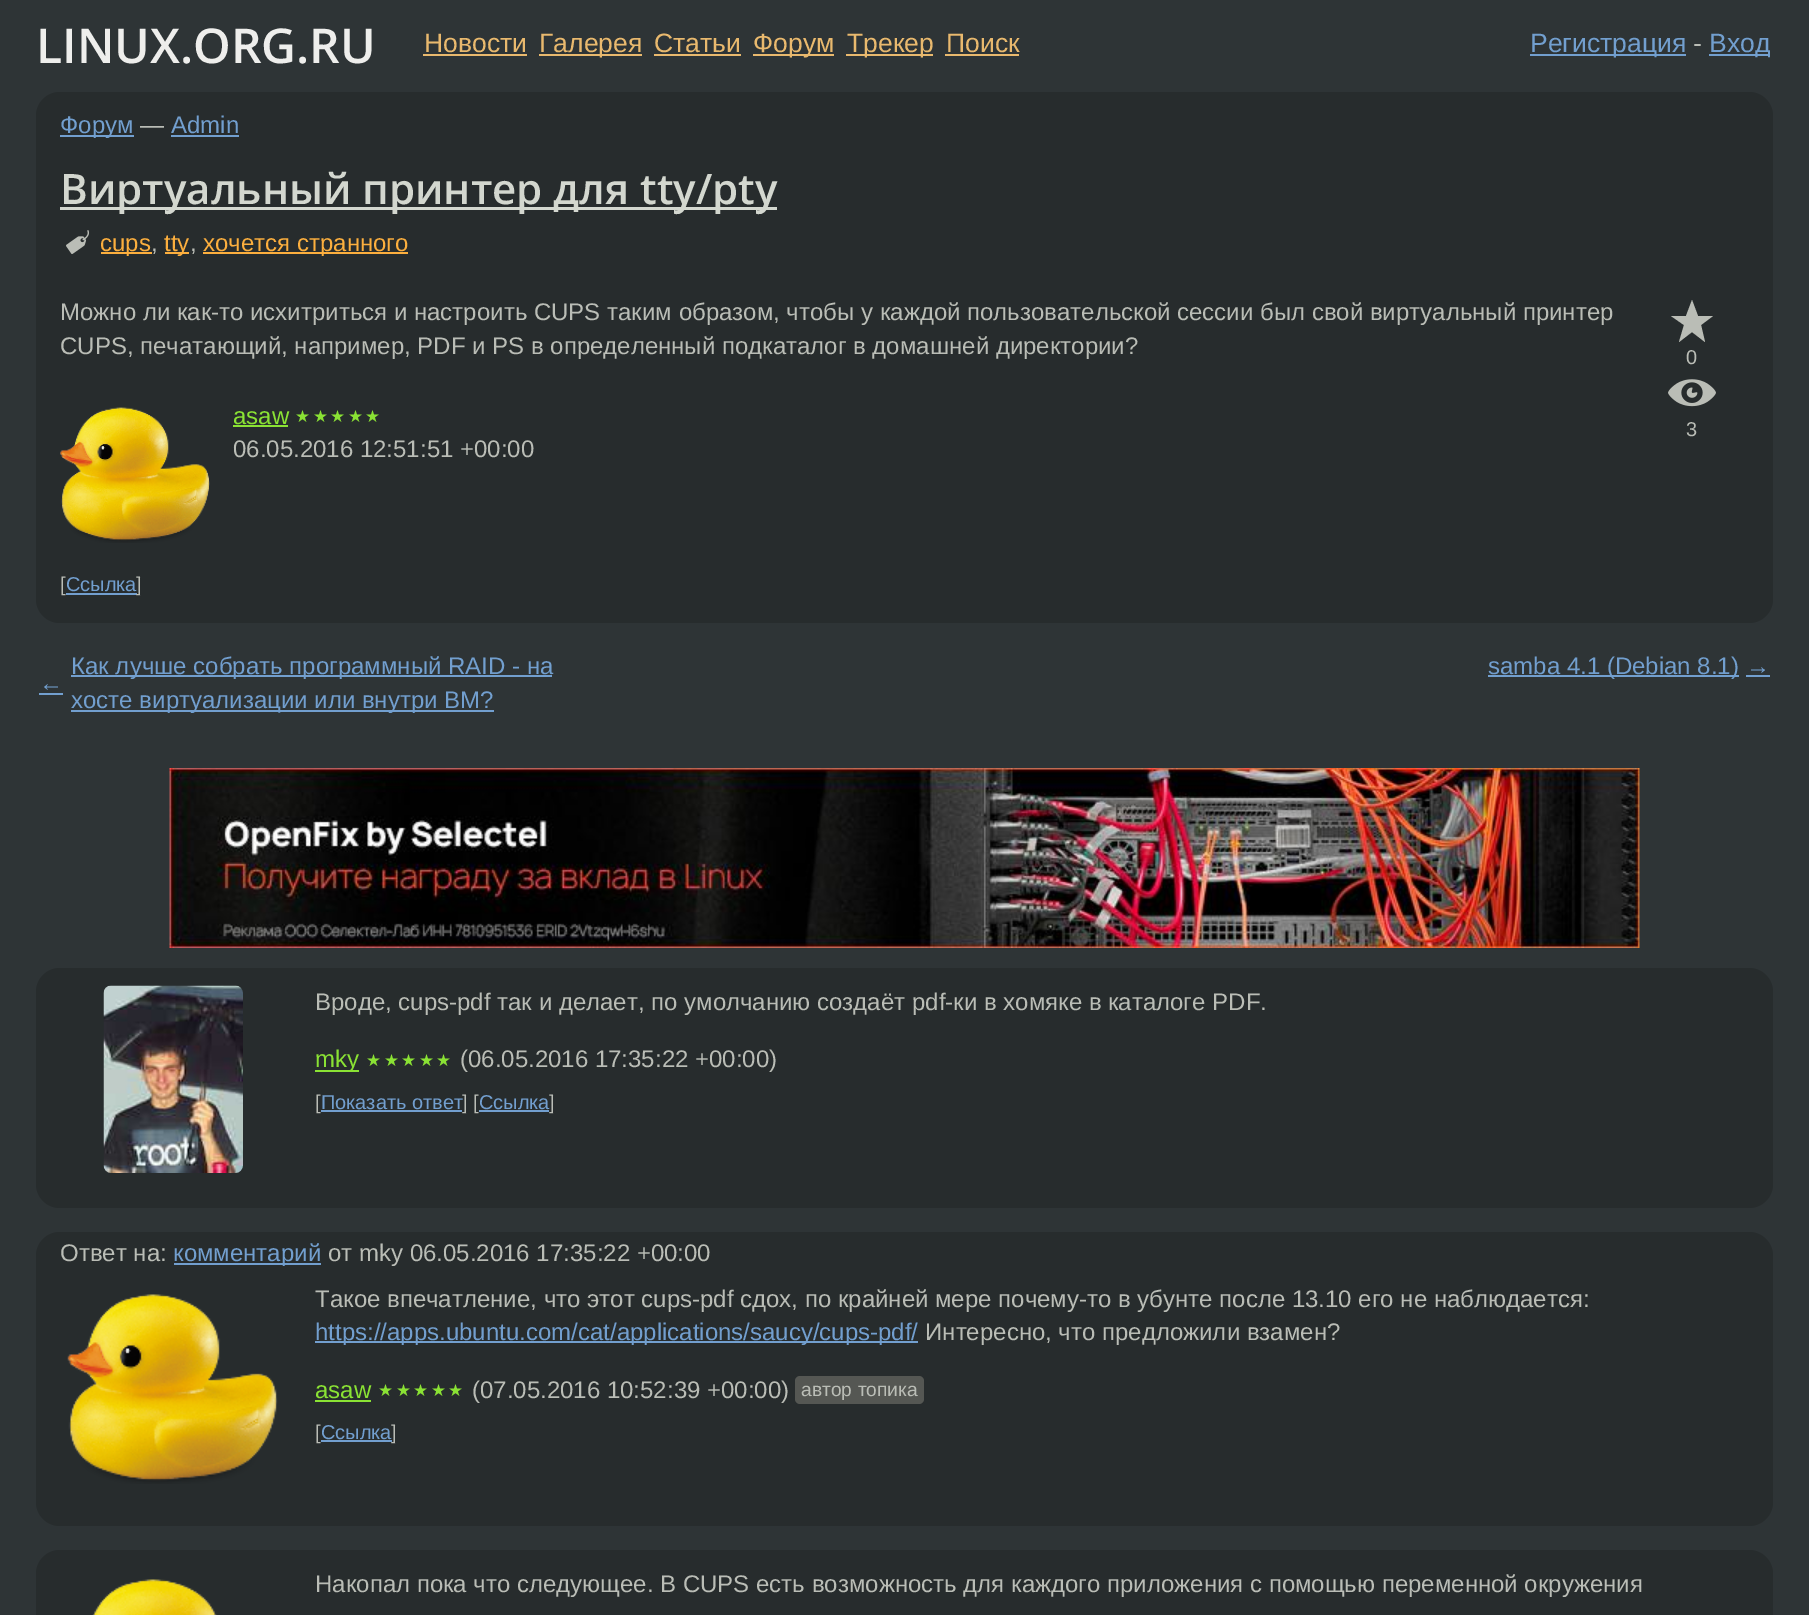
%!PS
<< /PageSize [1809 1615] >> setpagedevice
/roundrect { 5 dict begin { /r /h /w /y /x } { exch def } forall
  x r add y moveto x w add y 2 copy h add r arct x w add y h add x 1 index r arct
  x y h add x y r arct x y 2 copy exch w add exch r arct closepath end } def
/picture { 5 dict begin { /h /w /y /x /name } { exch def } forall
  gsave x y translate w h scale
  w h 8 [w 0 0 h 0 0] name (r) file false 3 colorimage grestore end } def
0 1615 translate 1 -1 scale
4 setmiterlimit
0.18 0.204 0.212 setrgbcolor
0 0 1809 1615 rectfill
/OpenSans-SemiBold [48 0 0 -48 0 0] selectfont
0.933 0.933 0.925 setrgbcolor
36 63 moveto (LINUX.ORG.RU) show
/LiberationSans-Regular [26.5 0 0 -26.5 0 0] selectfont
0.914 0.725 0.431 setrgbcolor
424 52 moveto (Новости) show
423 54 104 2 rectfill
539 54 103 2 rectfill
539 52 moveto (Галерея) show
654 52 moveto (Статьи) show
654 54 87 2 rectfill
753 54 81 2 rectfill
753 52 moveto (Форум) show
846 54 87 2 rectfill
847 52 moveto (Трекер) show
946 52 moveto (Поиск) show
945 54 74 2 rectfill
0.447 0.624 0.812 setrgbcolor
1530 54 156 2 rectfill
1530 52 moveto (Регистрация) show
0.729 0.741 0.714 setrgbcolor
1693 52 moveto (-) show
0.447 0.624 0.812 setrgbcolor
1709 54 61 2 rectfill
1709 52 moveto (Вход) show
0.153 0.173 0.176 setrgbcolor
36 92 1737 531 24 roundrect fill
0.447 0.624 0.812 setrgbcolor
60 135 74 2 rectfill
/LiberationSans-Regular [24 0 0 -24 0 0] selectfont
60 133 moveto (Форум) show
0.729 0.741 0.714 setrgbcolor
140 133 moveto (—) show
0.447 0.624 0.812 setrgbcolor
171 133 moveto (Admin) show
171 135 68 2 rectfill
0.827 0.843 0.812 setrgbcolor
60 207 717 3 rectfill
/OpenSans-SemiBold [42 0 0 -42 0 0] selectfont
60 204 moveto (Виртуальный принтер для tty/pty) show
(img1.rgb) 66 230 23 24 picture
0.988 0.686 0.243 setrgbcolor
101 252 51 2 rectfill
/LiberationSans-Regular [24 0 0 -24 0 0] selectfont
100 251 moveto (cups) show
0.729 0.741 0.714 setrgbcolor
151 251 moveto (,) show
0.988 0.686 0.243 setrgbcolor
165 252 24 2 rectfill
164 251 moveto (tty) show
0.729 0.741 0.714 setrgbcolor
190 251 moveto (,) show
0.988 0.686 0.243 setrgbcolor
203 252 205 2 rectfill
203 251 moveto (хочется странного) show
0.729 0.741 0.714 setrgbcolor
60 320 moveto (Можно ли как-то исхитриться и настроить CUPS таким образом, чтобы у каждой пользовательской сессии был свой виртуальный принтер) show
60 354 moveto (CUPS, печатающий, например, PDF и PS в определенный подкаталог в домашней директории?) show
(img2.rgb) 60 407 150 136 picture
0.541 0.886 0.204 setrgbcolor
233 424 moveto (asaw) show
233 425 55 2 rectfill
/DejaVuSans-Regular [16.75 0 0 -16.75 0 0] selectfont
295 422 moveto 2.5 0 (★★★★★) ashow
/LiberationSans-Regular [24 0 0 -24 0 0] selectfont
0.729 0.741 0.714 setrgbcolor
233 457 moveto (06.05.2016 12:51:51 +00:00) show
newpath 1692 300 moveto 1698 316 lineto 1713 316 lineto 1701 325 lineto 1705 342 lineto 1692 332 lineto 1679 342 lineto 1684 325 lineto 1671 316 lineto 1686 316 lineto closepath fill
/LiberationSans-Regular [20 0 0 -20 0 0] selectfont
1686 364 moveto (0) show
(img3.rgb) 1668 379 48 28 picture
1686 436 moveto (3) show
60 591 moveto ([) show
0.447 0.624 0.812 setrgbcolor
66 593 71 2 rectfill
66 591 moveto (Ссылка) show
0.729 0.741 0.714 setrgbcolor
136 591 moveto (]) show
/LiberationSans-Regular [24 0 0 -24 0 0] selectfont
0.447 0.624 0.812 setrgbcolor
39 691 moveto (←) show
39 693 24 2 rectfill
71 675 481 2 rectfill
71 674 moveto (Как лучше собрать программный RAID - на) show
71 710 423 2 rectfill
71 708 moveto (хосте виртуализации или внутри ВМ?) show
1488 675 251 2 rectfill
1488 674 moveto (samba 4.1 \(Debian 8.1\)) show
1746 674 moveto (→) show
1746 675 24 2 rectfill
(img4.rgb) 169 768 1471 180 picture
0.153 0.173 0.176 setrgbcolor
36 968 1737 240 24 roundrect fill
(img5.rgb) 103 985 140 188 picture
0.729 0.741 0.714 setrgbcolor
315 1010 moveto (Вроде, cups-pdf так и делает, по умолчанию создаёт pdf-ки в хомяке в каталоге PDF.) show
0.541 0.886 0.204 setrgbcolor
315 1070 44 2 rectfill
315 1067 moveto (mky) show
/DejaVuSans-Regular [16.75 0 0 -16.75 0 0] selectfont
366 1066 moveto 2.5 0 (★★★★★) ashow
/LiberationSans-Regular [24 0 0 -24 0 0] selectfont
0.729 0.741 0.714 setrgbcolor
460 1067 moveto (\(06.05.2016 17:35:22 +00:00\)) show
/LiberationSans-Regular [20 0 0 -20 0 0] selectfont
315 1109 moveto ([) show
0.447 0.624 0.812 setrgbcolor
321 1110 141 2 rectfill
321 1109 moveto (Показать ответ) show
0.729 0.741 0.714 setrgbcolor
462 1109 moveto (] [) show
0.447 0.624 0.812 setrgbcolor
479 1110 70 2 rectfill
479 1109 moveto (Ссылка) show
0.729 0.741 0.714 setrgbcolor
549 1109 moveto (]) show
0.153 0.173 0.176 setrgbcolor
36 1232 1737 294 24 roundrect fill
/LiberationSans-Regular [24 0 0 -24 0 0] selectfont
0.729 0.741 0.714 setrgbcolor
60 1261 moveto (Ответ на:) show
0.447 0.624 0.812 setrgbcolor
174 1263 147 2 rectfill
173 1261 moveto (комментарий) show
0.729 0.741 0.714 setrgbcolor
328 1261 moveto (от mky 06.05.2016 17:35:22 +00:00) show
(img6.rgb) 67 1294 211 190 picture
315 1307 moveto (Такое впечатление, что этот cups-pdf сдох, по крайней мере почему-то в убунте после 13.10 его не наблюдается:) show
0.447 0.624 0.812 setrgbcolor
315 1341 603 2 rectfill
315 1340 moveto (https://apps.ubuntu.com/cat/applications/saucy/cups-pdf/) show
0.729 0.741 0.714 setrgbcolor
925 1340 moveto (Интересно, что предложили взамен?) show
0.541 0.886 0.204 setrgbcolor
315 1398 moveto (asaw) show
315 1400 56 2 rectfill
/DejaVuSans-Regular [16.75 0 0 -16.75 0 0] selectfont
378 1396 moveto 2.5 0 (★★★★★) ashow
/LiberationSans-Regular [24 0 0 -24 0 0] selectfont
0.729 0.741 0.714 setrgbcolor
472 1398 moveto (\(07.05.2016 10:52:39 +00:00\)) show
0.333 0.341 0.325 setrgbcolor
795 1376 129 28 5 roundrect fill
/LiberationSans-Regular [19.25 0 0 -19.25 0 0] selectfont
0.729 0.741 0.714 setrgbcolor
801 1396 moveto (автор топика) show
/LiberationSans-Regular [20 0 0 -20 0 0] selectfont
315 1439 moveto ([) show
0.447 0.624 0.812 setrgbcolor
321 1440 71 2 rectfill
321 1439 moveto (Ссылка) show
0.729 0.741 0.714 setrgbcolor
391 1439 moveto (]) show
0.153 0.173 0.176 setrgbcolor
36 1550 1737 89 24 roundrect fill
(img7.rgb) 92 1579 125 36 picture
/LiberationSans-Regular [24 0 0 -24 0 0] selectfont
0.729 0.741 0.714 setrgbcolor
315 1592 moveto (Накопал пока что следующее. В CUPS есть возможность для каждого приложения с помощью переменной окружения) show
showpage
